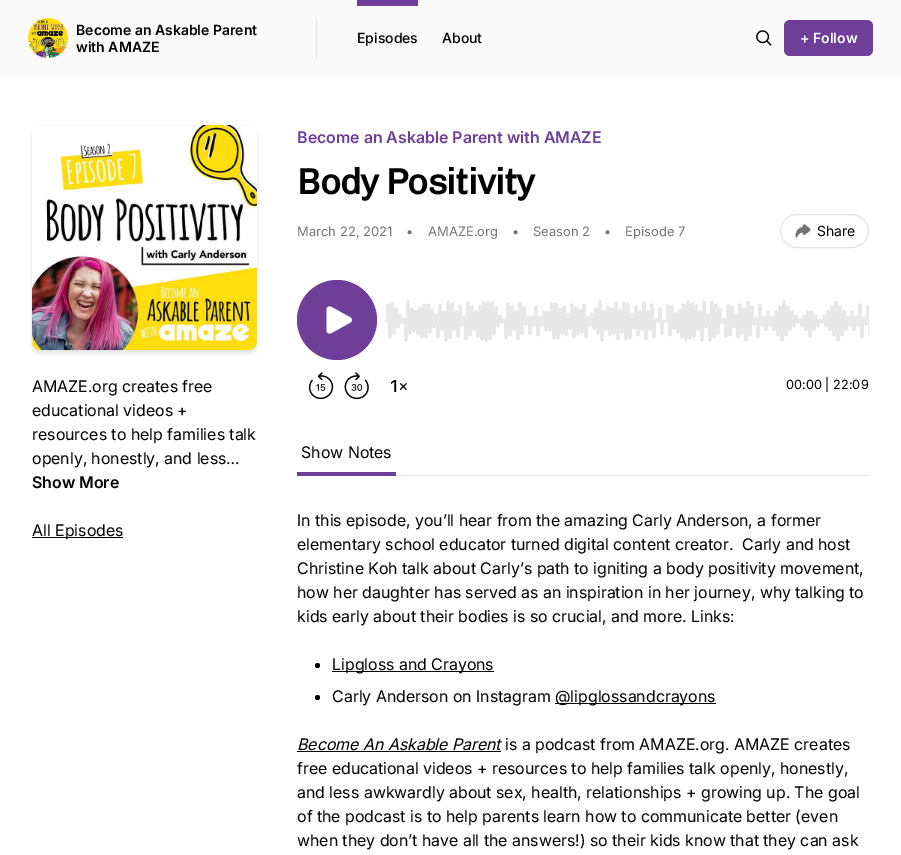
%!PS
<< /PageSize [901 855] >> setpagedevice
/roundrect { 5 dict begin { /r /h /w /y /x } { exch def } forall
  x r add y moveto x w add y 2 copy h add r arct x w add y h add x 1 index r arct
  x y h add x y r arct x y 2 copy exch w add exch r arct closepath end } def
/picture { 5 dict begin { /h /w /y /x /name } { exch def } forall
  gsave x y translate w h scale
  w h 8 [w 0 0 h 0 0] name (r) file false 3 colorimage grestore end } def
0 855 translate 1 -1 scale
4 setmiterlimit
1 setgray
0 0 901 855 rectfill
0.98 setgray
0 0 901 76 rectfill
0.894 0.898 0.902 setrgbcolor
316 18 1 40 rectfill
(img1.rgb) 28 18 40 40 picture
/Inter-SemiBold [14 0 0 -14 0 0] selectfont
0 setgray
76 35 moveto (Become an Askable Parent) show
76 52 moveto (with AMAZE) show
0.431 0.243 0.596 setrgbcolor
357 0 61 6 rectfill
/Inter-Medium [14 0 0 -14 0 0] selectfont
0 setgray
357 43 moveto (Episodes) show
442 43 moveto (About) show
(img2.rgb) 756 30 16 16 picture
0.431 0.243 0.596 setrgbcolor
784 20 89 36 6 roundrect fill
/Inter-SemiBold [14 0 0 -14 0 0] selectfont
1 setgray
800 43 moveto (+ Follow) show
(img3.rgb) 30 125 229 231 picture
/Inter-Regular [16 0 0 -16 0 0] selectfont
0 setgray
32 392 moveto (AMAZE.org creates free) show
32 416 moveto (educational videos +) show
32 440 moveto (resources to help families talk) show
32 464 moveto (openly, honestly, and less…) show
/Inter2-SemiBold [16 0 0 -16 0 0] selectfont
32 488 moveto (Show More) show
32 537 91 1 rectfill
/Inter-Regular [16 0 0 -16 0 0] selectfont
32 536 moveto (All Episodes) show
/Inter2-SemiBold [16 0 0 -16 0 0] selectfont
0.431 0.243 0.596 setrgbcolor
297 143 moveto (Become an Askable Parent with AMAZE) show
/Chivo-Bold [36 0 0 -36 0 0] selectfont
0 setgray
297 194 moveto -0.9 0 (Body Positivity) ashow
/Inter2-Regular [13 0 0 -13 0 0] selectfont
0.455 0.459 0.463 setrgbcolor
297 236 moveto (March 22, 2021) show
406 236 moveto (•) show
428 236 moveto (AMAZE.org) show
512 236 moveto (•) show
533 236 moveto (Season 2) show
604 236 moveto (•) show
625 236 moveto (Episode 7) show
0.894 0.898 0.902 setrgbcolor
780.5 214.5 88 33 16.5 roundrect stroke
(img4.rgb) 795 224 16 14 picture
/Inter2-Regular [14 0 0 -14 0 0] selectfont
0 setgray
817 236 moveto (Share) show
(img5.rgb) 308 372 26 28 picture
(img6.rgb) 344 372 25 28 picture
(img7.rgb) 391 380 16 12 picture
0.431 0.243 0.596 setrgbcolor
newpath 337 320 40 0 360 arc closepath fill
(img8.rgb) 326 306 26 28 picture
(img9.rgb) 385 300 484 42 picture
/Inter2-Regular [12.75 0 0 -12.75 0 0] selectfont
0 setgray
786 389 moveto (00:00 | 22:09) show
0.894 0.898 0.902 setrgbcolor
396 475 473 1 rectfill
0.431 0.243 0.596 setrgbcolor
297 472 99 4 rectfill
/Inter-Regular [16 0 0 -16 0 0] selectfont
0 setgray
301 458 moveto (Show Notes) show
297 526 moveto (In this episode, you’ll hear from the amazing Carly Anderson, a former) show
297 550 moveto (elementary school educator turned digital content creator.  Carly and host) show
297 574 moveto (Christine Koh talk about Carly’s path to igniting a body positivity movement,) show
297 598 moveto (how her daughter has served as an inspiration in her journey, why talking to) show
297 622 moveto (kids early about their bodies is so crucial, and more. Links:) show
newpath 317.5 665.5 2.5 0 360 arc closepath fill
332 671 162 1 rectfill
332 670 moveto (Lipgloss and Crayons) show
newpath 317.5 697.5 2.5 0 360 arc closepath fill
332 702 moveto (Carly Anderson on Instagram) show
555 703 161 1 rectfill
555 702 moveto (@lipglossandcrayons) show
/Inter-Italic [16 0 0 -16 0 0] selectfont
297 750 moveto (Become An Askable Parent) show
297 751 204 1 rectfill
/Inter-Regular [16 0 0 -16 0 0] selectfont
505 750 moveto (is a podcast from AMAZE.org. AMAZE creates) show
297 774 moveto (free educational videos + resources to help families talk openly, honestly,) show
297 798 moveto (and less awkwardly about sex, health, relationships + growing up. The goal) show
297 822 moveto (of the podcast is to help parents learn how to communicate better \(even) show
297 846 moveto (when they don’t have all the answers!\) so their kids know that they can ask) show
showpage
